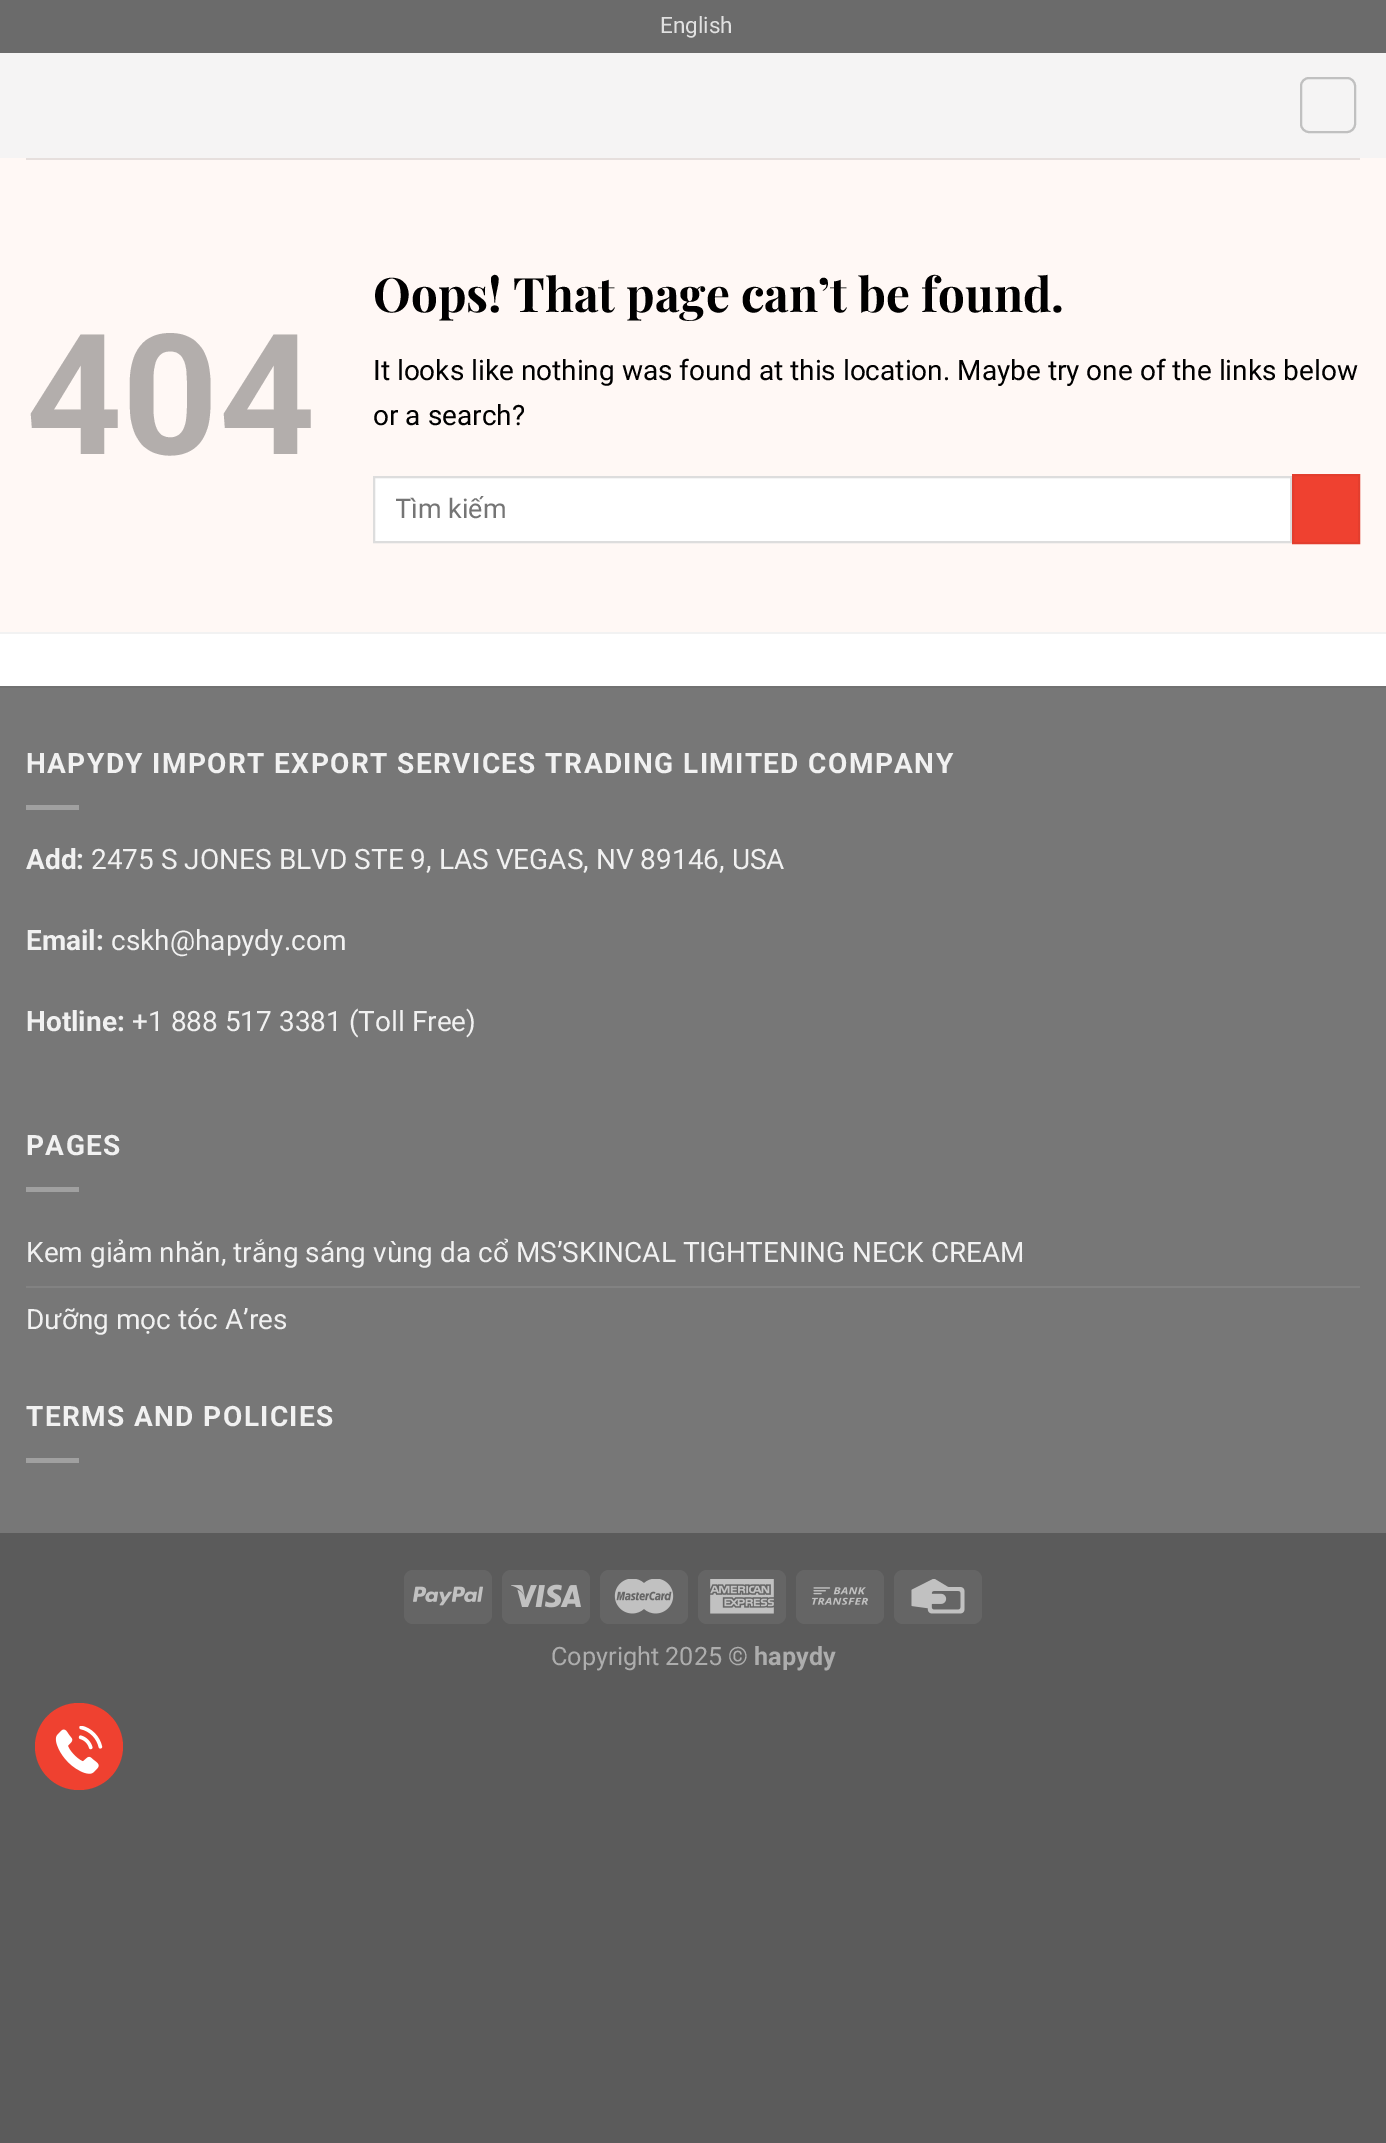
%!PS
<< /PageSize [1386 2143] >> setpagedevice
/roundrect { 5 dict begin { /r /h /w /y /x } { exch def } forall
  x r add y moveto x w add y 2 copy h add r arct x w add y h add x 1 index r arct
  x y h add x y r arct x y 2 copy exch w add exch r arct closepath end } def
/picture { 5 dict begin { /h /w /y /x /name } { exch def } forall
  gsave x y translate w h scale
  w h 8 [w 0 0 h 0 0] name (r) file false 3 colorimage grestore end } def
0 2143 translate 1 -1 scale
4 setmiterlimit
0.357 setgray
0 0 1386 2143 rectfill
1 0.973 0.961 setrgbcolor
0 158 1386 474 rectfill
0.961 0.957 0.957 setrgbcolor
0 53 1386 105 rectfill
0.42 setgray
0 0 1386 53 rectfill
/Roboto-Regular [22.5 0 0 -22.5 0 0] selectfont
0.882 setgray
660 33 moveto (English) show
0.753 setgray
2 setlinewidth
1301 78 54 54 8 roundrect stroke
0.902 0.875 0.867 setrgbcolor
26 158 1334 2 rectfill
/Roboto-Bold [168 0 0 -168 0 0] selectfont
0.702 0.682 0.675 setrgbcolor
26 454 moveto (404) show
/PlayfairDisplay-Bold [47.6 0 0 -47.6 0 0] selectfont
0 setgray
373 312 moveto (Oops! That page can’t be found.) show
/Roboto-Regular [28 0 0 -28 0 0] selectfont
373 380 moveto (It looks like nothing was found at this location. Maybe try one of the links below) show
373 425 moveto (or a search?) show
1 setgray
newpath 374 477 moveto 1291 477 lineto 1291 542 lineto 374 542 lineto closepath gsave fill grestore
0.867 setgray
stroke
gsave
396 494 868 31 rectclip
/Roboto-Regular [27 0 0 -27 0 0] selectfont
0.459 setgray
395 518 moveto (Tìm kiếm) show
grestore
0.937 0.255 0.188 setrgbcolor
newpath 1293 475 moveto 1359 475 lineto 1359 543 lineto 1293 543 lineto closepath gsave fill grestore
0.89 0.243 0.18 setrgbcolor
stroke
1 setgray
0 634 1386 52 rectfill
0.949 setgray
0 632 1386 2 rectfill
0.467 setgray
0 688 1386 845 rectfill
0.443 setgray
0 686 1386 2 rectfill
/Roboto-Bold [28 0 0 -28 0 0] selectfont
0.945 setgray
26 773 moveto 1.4 0 (HAPYDY IMPORT EXPORT SERVICES TRADING LIMITED COMPANY) ashow
0.627 setgray
26 805 53 5 rectfill
0.945 setgray
26 869 moveto (Add:) show
/Roboto-Regular [28 0 0 -28 0 0] selectfont
91 869 moveto (2475 S JONES BLVD STE 9, LAS VEGAS, NV 89146, USA) show
/Roboto-Bold [28 0 0 -28 0 0] selectfont
26 950 moveto (Email:) show
/Roboto-Regular [28 0 0 -28 0 0] selectfont
111 950 moveto (cskh@hapydy.com) show
/Roboto-Bold [28 0 0 -28 0 0] selectfont
26 1031 moveto (Hotline:) show
/Roboto-Regular [28 0 0 -28 0 0] selectfont
132 1031 moveto (+1 888 517 3381 \(Toll Free\)) show
/Roboto-Bold [28 0 0 -28 0 0] selectfont
26 1155 moveto 1.4 0 (PAGES) ashow
0.627 setgray
26 1187 53 5 rectfill
/Roboto-Regular [28 0 0 -28 0 0] selectfont
0.945 setgray
26 1262 moveto (Kem giảm nhăn, trắng sáng vùng da cổ MS’SKINCAL TIGHTENING NECK CREAM) show
0.51 setgray
26 1286 1334 2 rectfill
0.945 setgray
26 1329 moveto (Dưỡng mọc tóc A’res) show
/Roboto-Bold [28 0 0 -28 0 0] selectfont
26 1426 moveto 1.4 0 (TERMS AND POLICIES) ashow
0.627 setgray
26 1458 53 5 rectfill
0.396 setgray
404 1570 88 54 9 roundrect fill
(img1.rgb) 413 1586 70 20 picture
502 1570 88 54 9 roundrect fill
(img2.rgb) 511 1584 70 24 picture
600 1570 88 54 9 roundrect fill
(img3.rgb) 614 1579 60 35 picture
698 1570 88 54 9 roundrect fill
(img4.rgb) 710 1579 64 35 picture
796 1570 88 54 9 roundrect fill
(img5.rgb) 812 1587 56 18 picture
894 1570 88 54 9 roundrect fill
(img6.rgb) 911 1579 54 35 picture
/Roboto-Regular [25.25 0 0 -25.25 0 0] selectfont
0.678 setgray
551 1665 moveto (Copyright 2025 ©) show
/Roboto-Bold [25.25 0 0 -25.25 0 0] selectfont
754 1665 moveto (hapydy) show
0.937 0.255 0.188 setrgbcolor
35 1703 88 87 43.5 roundrect fill
(img7.rgb) 55 1726 48 48 picture
showpage
